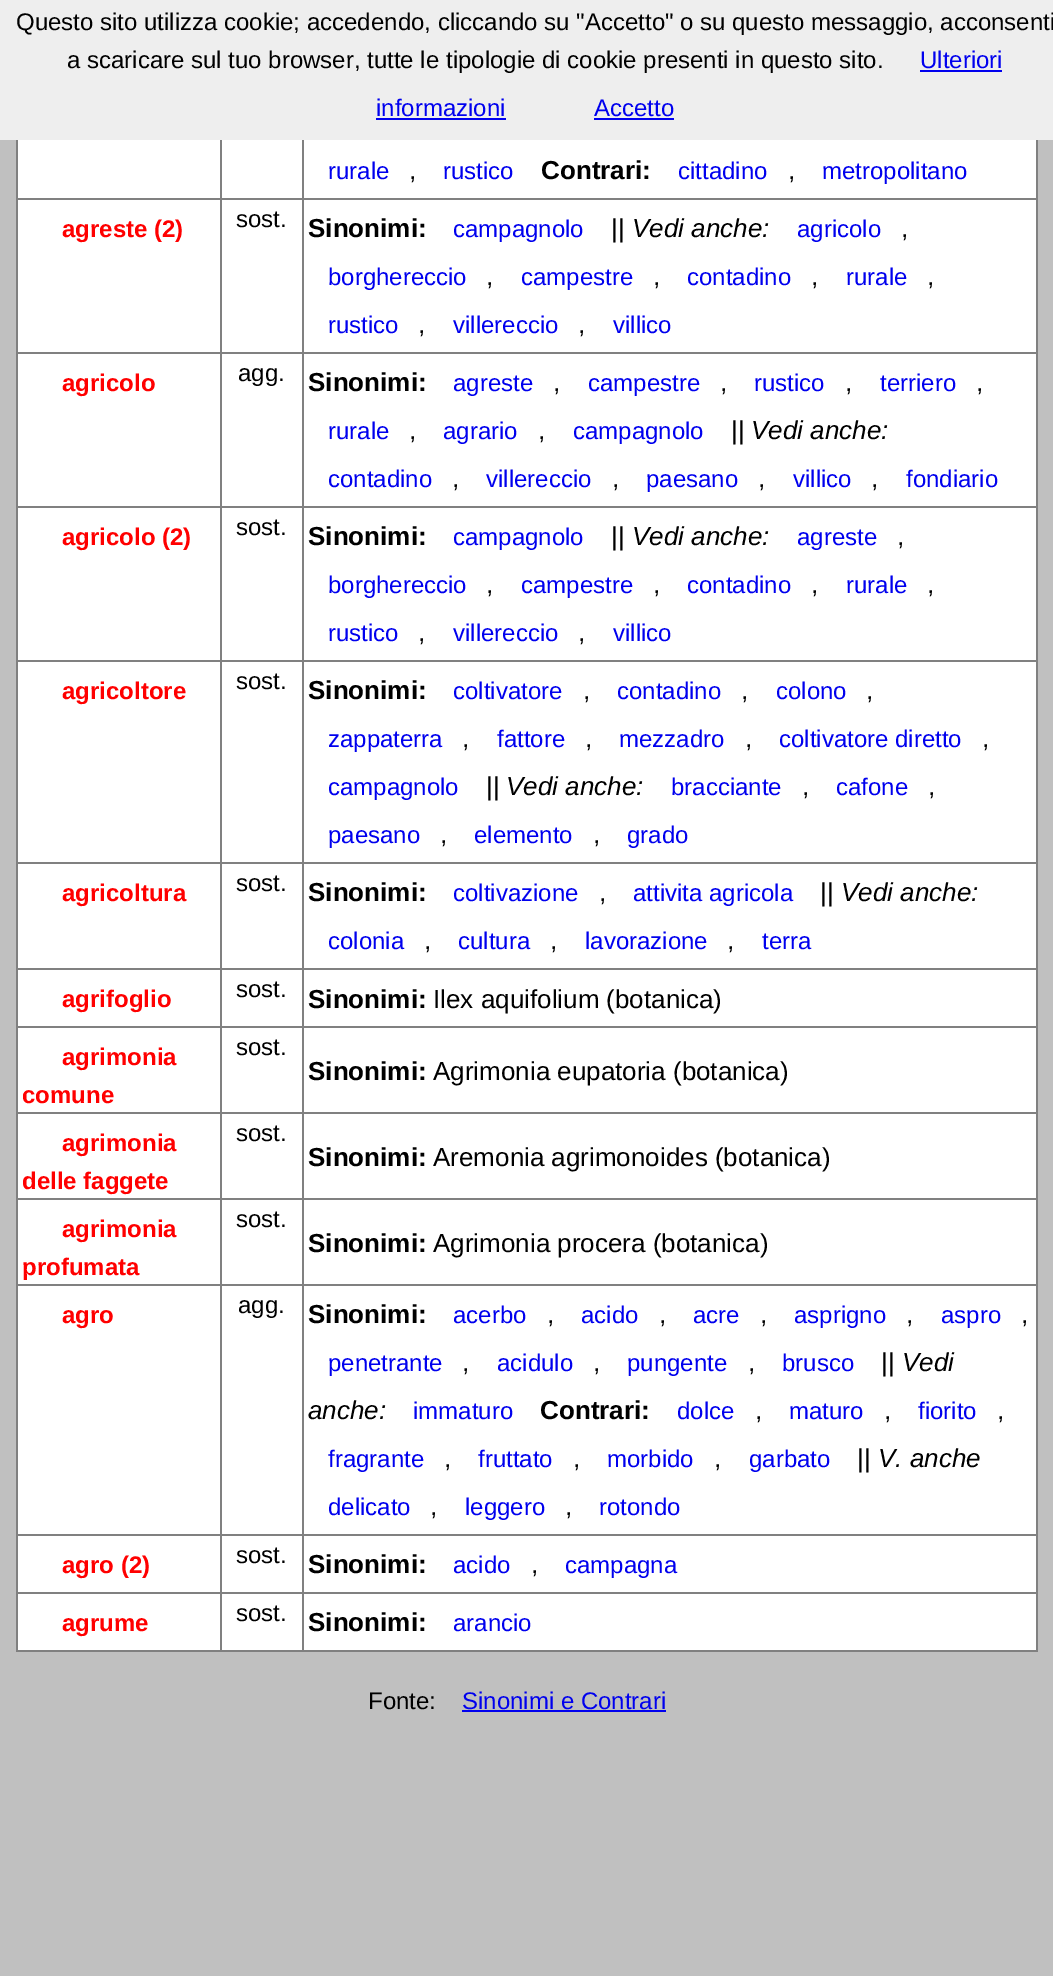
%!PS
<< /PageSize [1053 1976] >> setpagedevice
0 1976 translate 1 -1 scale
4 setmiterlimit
0.753 setgray
0 0 1053 1976 rectfill
0.933 setgray
0 0 1053 140 rectfill
/LiberationSans-Regular [24 0 0 -24 0 0] selectfont
0 setgray
16 30 moveto (Questo sito utilizza cookie; accedendo, cliccando su "Accetto" o su questo messaggio, acconsenti) show
67 68 moveto (a scaricare sul tuo browser, tutte le tipologie di cookie presenti in questo sito.) show
0 0 0.933 setrgbcolor
920 68 moveto (Ulteriori) show
920 70 82 2 rectfill
376 116 moveto (informazioni) show
376 118 130 2 rectfill
594 116 moveto (Accetto) show
594 118 80 2 rectfill
1 setgray
18 140 1018 1510 rectfill
0.502 setgray
1036 140 2 1512 rectfill
16 1650 1022 2 rectfill
16 140 2 1512 rectfill
302 198 736 2 rectfill
302 352 736 2 rectfill
302 506 736 2 rectfill
302 660 736 2 rectfill
302 862 736 2 rectfill
302 968 736 2 rectfill
302 1026 736 2 rectfill
302 1112 736 2 rectfill
302 1198 736 2 rectfill
302 1284 736 2 rectfill
302 1534 736 2 rectfill
302 1592 736 2 rectfill
302 1592 2 60 rectfill
220 1592 84 2 rectfill
302 1534 2 60 rectfill
220 1534 84 2 rectfill
302 1284 2 252 rectfill
220 1284 84 2 rectfill
302 1198 2 88 rectfill
220 1198 84 2 rectfill
302 1112 2 88 rectfill
220 1112 84 2 rectfill
302 1026 2 88 rectfill
220 1026 84 2 rectfill
302 968 2 60 rectfill
220 968 84 2 rectfill
302 862 2 108 rectfill
220 862 84 2 rectfill
302 660 2 204 rectfill
220 660 84 2 rectfill
302 506 2 156 rectfill
220 506 84 2 rectfill
302 352 2 156 rectfill
220 352 84 2 rectfill
302 198 2 156 rectfill
220 198 84 2 rectfill
220 1592 2 60 rectfill
16 1592 206 2 rectfill
220 1534 2 60 rectfill
16 1534 206 2 rectfill
220 1284 2 252 rectfill
16 1284 206 2 rectfill
220 1198 2 88 rectfill
16 1198 206 2 rectfill
220 1112 2 88 rectfill
16 1112 206 2 rectfill
220 1026 2 88 rectfill
16 1026 206 2 rectfill
220 968 2 60 rectfill
16 968 206 2 rectfill
220 862 2 108 rectfill
16 862 206 2 rectfill
220 660 2 204 rectfill
16 660 206 2 rectfill
220 506 2 156 rectfill
16 506 206 2 rectfill
220 352 2 156 rectfill
16 352 206 2 rectfill
220 198 2 156 rectfill
16 198 206 2 rectfill
220 140 2 60 rectfill
302 140 2 60 rectfill
0 0 0.933 setrgbcolor
328 179 moveto (rurale) show
/LiberationSans-Regular [26 0 0 -26 0 0] selectfont
0 setgray
409 179 moveto (,) show
/LiberationSans-Regular [24 0 0 -24 0 0] selectfont
0 0 0.933 setrgbcolor
443 179 moveto (rustico) show
/LiberationSans-Bold [26 0 0 -26 0 0] selectfont
0 setgray
541 179 moveto (Contrari:) show
/LiberationSans-Regular [24 0 0 -24 0 0] selectfont
0 0 0.933 setrgbcolor
678 179 moveto (cittadino) show
/LiberationSans-Regular [26 0 0 -26 0 0] selectfont
0 setgray
788 179 moveto (,) show
/LiberationSans-Regular [24 0 0 -24 0 0] selectfont
0 0 0.933 setrgbcolor
822 179 moveto (metropolitano) show
/LiberationSans-Bold [24 0 0 -24 0 0] selectfont
1 0 0 setrgbcolor
62 237 moveto (agreste \(2\)) show
/LiberationSans-Regular [24 0 0 -24 0 0] selectfont
0 setgray
236 227 moveto (sost.) show
/LiberationSans-Bold [26 0 0 -26 0 0] selectfont
308 237 moveto (Sinonimi:) show
/LiberationSans-Regular [24 0 0 -24 0 0] selectfont
0 0 0.933 setrgbcolor
453 237 moveto (campagnolo) show
/LiberationSans-Regular [26 0 0 -26 0 0] selectfont
0 setgray
611 237 moveto (||) show
/LiberationSans-Italic [26 0 0 -26 0 0] selectfont
632 237 moveto (Vedi anche:) show
/LiberationSans-Regular [24 0 0 -24 0 0] selectfont
0 0 0.933 setrgbcolor
797 237 moveto (agricolo) show
/LiberationSans-Regular [26 0 0 -26 0 0] selectfont
0 setgray
901 237 moveto (,) show
/LiberationSans-Regular [24 0 0 -24 0 0] selectfont
0 0 0.933 setrgbcolor
328 285 moveto (borghereccio) show
/LiberationSans-Regular [26 0 0 -26 0 0] selectfont
0 setgray
486 285 moveto (,) show
/LiberationSans-Regular [24 0 0 -24 0 0] selectfont
0 0 0.933 setrgbcolor
521 285 moveto (campestre) show
/LiberationSans-Regular [26 0 0 -26 0 0] selectfont
0 setgray
653 285 moveto (,) show
/LiberationSans-Regular [24 0 0 -24 0 0] selectfont
0 0 0.933 setrgbcolor
687 285 moveto (contadino) show
/LiberationSans-Regular [26 0 0 -26 0 0] selectfont
0 setgray
811 285 moveto (,) show
/LiberationSans-Regular [24 0 0 -24 0 0] selectfont
0 0 0.933 setrgbcolor
846 285 moveto (rurale) show
/LiberationSans-Regular [26 0 0 -26 0 0] selectfont
0 setgray
927 285 moveto (,) show
/LiberationSans-Regular [24 0 0 -24 0 0] selectfont
0 0 0.933 setrgbcolor
328 333 moveto (rustico) show
/LiberationSans-Regular [26 0 0 -26 0 0] selectfont
0 setgray
418 333 moveto (,) show
/LiberationSans-Regular [24 0 0 -24 0 0] selectfont
0 0 0.933 setrgbcolor
453 333 moveto (villereccio) show
/LiberationSans-Regular [26 0 0 -26 0 0] selectfont
0 setgray
578 333 moveto (,) show
/LiberationSans-Regular [24 0 0 -24 0 0] selectfont
0 0 0.933 setrgbcolor
613 333 moveto (villico) show
/LiberationSans-Bold [24 0 0 -24 0 0] selectfont
1 0 0 setrgbcolor
62 391 moveto (agricolo) show
/LiberationSans-Regular [24 0 0 -24 0 0] selectfont
0 setgray
238 381 moveto (agg.) show
/LiberationSans-Bold [26 0 0 -26 0 0] selectfont
308 391 moveto (Sinonimi:) show
/LiberationSans-Regular [24 0 0 -24 0 0] selectfont
0 0 0.933 setrgbcolor
453 391 moveto (agreste) show
/LiberationSans-Regular [26 0 0 -26 0 0] selectfont
0 setgray
553 391 moveto (,) show
/LiberationSans-Regular [24 0 0 -24 0 0] selectfont
0 0 0.933 setrgbcolor
588 391 moveto (campestre) show
/LiberationSans-Regular [26 0 0 -26 0 0] selectfont
0 setgray
720 391 moveto (,) show
/LiberationSans-Regular [24 0 0 -24 0 0] selectfont
0 0 0.933 setrgbcolor
754 391 moveto (rustico) show
/LiberationSans-Regular [26 0 0 -26 0 0] selectfont
0 setgray
845 391 moveto (,) show
/LiberationSans-Regular [24 0 0 -24 0 0] selectfont
0 0 0.933 setrgbcolor
880 391 moveto (terriero) show
/LiberationSans-Regular [26 0 0 -26 0 0] selectfont
0 setgray
976 391 moveto (,) show
/LiberationSans-Regular [24 0 0 -24 0 0] selectfont
0 0 0.933 setrgbcolor
328 439 moveto (rurale) show
/LiberationSans-Regular [26 0 0 -26 0 0] selectfont
0 setgray
409 439 moveto (,) show
/LiberationSans-Regular [24 0 0 -24 0 0] selectfont
0 0 0.933 setrgbcolor
443 439 moveto (agrario) show
/LiberationSans-Regular [26 0 0 -26 0 0] selectfont
0 setgray
538 439 moveto (,) show
/LiberationSans-Regular [24 0 0 -24 0 0] selectfont
0 0 0.933 setrgbcolor
573 439 moveto (campagnolo) show
/LiberationSans-Regular [26 0 0 -26 0 0] selectfont
0 setgray
731 439 moveto (||) show
/LiberationSans-Italic [26 0 0 -26 0 0] selectfont
751 439 moveto (Vedi anche:) show
/LiberationSans-Regular [24 0 0 -24 0 0] selectfont
0 0 0.933 setrgbcolor
328 487 moveto (contadino) show
/LiberationSans-Regular [26 0 0 -26 0 0] selectfont
0 setgray
452 487 moveto (,) show
/LiberationSans-Regular [24 0 0 -24 0 0] selectfont
0 0 0.933 setrgbcolor
486 487 moveto (villereccio) show
/LiberationSans-Regular [26 0 0 -26 0 0] selectfont
0 setgray
612 487 moveto (,) show
/LiberationSans-Regular [24 0 0 -24 0 0] selectfont
0 0 0.933 setrgbcolor
646 487 moveto (paesano) show
/LiberationSans-Regular [26 0 0 -26 0 0] selectfont
0 setgray
758 487 moveto (,) show
/LiberationSans-Regular [24 0 0 -24 0 0] selectfont
0 0 0.933 setrgbcolor
793 487 moveto (villico) show
/LiberationSans-Regular [26 0 0 -26 0 0] selectfont
0 setgray
871 487 moveto (,) show
/LiberationSans-Regular [24 0 0 -24 0 0] selectfont
0 0 0.933 setrgbcolor
906 487 moveto (fondiario) show
/LiberationSans-Bold [24 0 0 -24 0 0] selectfont
1 0 0 setrgbcolor
62 545 moveto (agricolo \(2\)) show
/LiberationSans-Regular [24 0 0 -24 0 0] selectfont
0 setgray
236 535 moveto (sost.) show
/LiberationSans-Bold [26 0 0 -26 0 0] selectfont
308 545 moveto (Sinonimi:) show
/LiberationSans-Regular [24 0 0 -24 0 0] selectfont
0 0 0.933 setrgbcolor
453 545 moveto (campagnolo) show
/LiberationSans-Regular [26 0 0 -26 0 0] selectfont
0 setgray
611 545 moveto (||) show
/LiberationSans-Italic [26 0 0 -26 0 0] selectfont
632 545 moveto (Vedi anche:) show
/LiberationSans-Regular [24 0 0 -24 0 0] selectfont
0 0 0.933 setrgbcolor
797 545 moveto (agreste) show
/LiberationSans-Regular [26 0 0 -26 0 0] selectfont
0 setgray
897 545 moveto (,) show
/LiberationSans-Regular [24 0 0 -24 0 0] selectfont
0 0 0.933 setrgbcolor
328 593 moveto (borghereccio) show
/LiberationSans-Regular [26 0 0 -26 0 0] selectfont
0 setgray
486 593 moveto (,) show
/LiberationSans-Regular [24 0 0 -24 0 0] selectfont
0 0 0.933 setrgbcolor
521 593 moveto (campestre) show
/LiberationSans-Regular [26 0 0 -26 0 0] selectfont
0 setgray
653 593 moveto (,) show
/LiberationSans-Regular [24 0 0 -24 0 0] selectfont
0 0 0.933 setrgbcolor
687 593 moveto (contadino) show
/LiberationSans-Regular [26 0 0 -26 0 0] selectfont
0 setgray
811 593 moveto (,) show
/LiberationSans-Regular [24 0 0 -24 0 0] selectfont
0 0 0.933 setrgbcolor
846 593 moveto (rurale) show
/LiberationSans-Regular [26 0 0 -26 0 0] selectfont
0 setgray
927 593 moveto (,) show
/LiberationSans-Regular [24 0 0 -24 0 0] selectfont
0 0 0.933 setrgbcolor
328 641 moveto (rustico) show
/LiberationSans-Regular [26 0 0 -26 0 0] selectfont
0 setgray
418 641 moveto (,) show
/LiberationSans-Regular [24 0 0 -24 0 0] selectfont
0 0 0.933 setrgbcolor
453 641 moveto (villereccio) show
/LiberationSans-Regular [26 0 0 -26 0 0] selectfont
0 setgray
578 641 moveto (,) show
/LiberationSans-Regular [24 0 0 -24 0 0] selectfont
0 0 0.933 setrgbcolor
613 641 moveto (villico) show
/LiberationSans-Bold [24 0 0 -24 0 0] selectfont
1 0 0 setrgbcolor
62 699 moveto (agricoltore) show
/LiberationSans-Regular [24 0 0 -24 0 0] selectfont
0 setgray
236 689 moveto (sost.) show
/LiberationSans-Bold [26 0 0 -26 0 0] selectfont
308 699 moveto (Sinonimi:) show
/LiberationSans-Regular [24 0 0 -24 0 0] selectfont
0 0 0.933 setrgbcolor
453 699 moveto (coltivatore) show
/LiberationSans-Regular [26 0 0 -26 0 0] selectfont
0 setgray
583 699 moveto (,) show
/LiberationSans-Regular [24 0 0 -24 0 0] selectfont
0 0 0.933 setrgbcolor
617 699 moveto (contadino) show
/LiberationSans-Regular [26 0 0 -26 0 0] selectfont
0 setgray
741 699 moveto (,) show
/LiberationSans-Regular [24 0 0 -24 0 0] selectfont
0 0 0.933 setrgbcolor
776 699 moveto (colono) show
/LiberationSans-Regular [26 0 0 -26 0 0] selectfont
0 setgray
866 699 moveto (,) show
/LiberationSans-Regular [24 0 0 -24 0 0] selectfont
0 0 0.933 setrgbcolor
328 747 moveto (zappaterra) show
/LiberationSans-Regular [26 0 0 -26 0 0] selectfont
0 setgray
462 747 moveto (,) show
/LiberationSans-Regular [24 0 0 -24 0 0] selectfont
0 0 0.933 setrgbcolor
497 747 moveto (fattore) show
/LiberationSans-Regular [26 0 0 -26 0 0] selectfont
0 setgray
585 747 moveto (,) show
/LiberationSans-Regular [24 0 0 -24 0 0] selectfont
0 0 0.933 setrgbcolor
619 747 moveto (mezzadro) show
/LiberationSans-Regular [26 0 0 -26 0 0] selectfont
0 setgray
745 747 moveto (,) show
/LiberationSans-Regular [24 0 0 -24 0 0] selectfont
0 0 0.933 setrgbcolor
779 747 moveto (coltivatore diretto) show
/LiberationSans-Regular [26 0 0 -26 0 0] selectfont
0 setgray
982 747 moveto (,) show
/LiberationSans-Regular [24 0 0 -24 0 0] selectfont
0 0 0.933 setrgbcolor
328 795 moveto (campagnolo) show
/LiberationSans-Regular [26 0 0 -26 0 0] selectfont
0 setgray
486 795 moveto (||) show
/LiberationSans-Italic [26 0 0 -26 0 0] selectfont
506 795 moveto (Vedi anche:) show
/LiberationSans-Regular [24 0 0 -24 0 0] selectfont
0 0 0.933 setrgbcolor
671 795 moveto (bracciante) show
/LiberationSans-Regular [26 0 0 -26 0 0] selectfont
0 setgray
802 795 moveto (,) show
/LiberationSans-Regular [24 0 0 -24 0 0] selectfont
0 0 0.933 setrgbcolor
836 795 moveto (cafone) show
/LiberationSans-Regular [26 0 0 -26 0 0] selectfont
0 setgray
928 795 moveto (,) show
/LiberationSans-Regular [24 0 0 -24 0 0] selectfont
0 0 0.933 setrgbcolor
328 843 moveto (paesano) show
/LiberationSans-Regular [26 0 0 -26 0 0] selectfont
0 setgray
440 843 moveto (,) show
/LiberationSans-Regular [24 0 0 -24 0 0] selectfont
0 0 0.933 setrgbcolor
474 843 moveto (elemento) show
/LiberationSans-Regular [26 0 0 -26 0 0] selectfont
0 setgray
593 843 moveto (,) show
/LiberationSans-Regular [24 0 0 -24 0 0] selectfont
0 0 0.933 setrgbcolor
627 843 moveto (grado) show
/LiberationSans-Bold [24 0 0 -24 0 0] selectfont
1 0 0 setrgbcolor
62 901 moveto (agricoltura) show
/LiberationSans-Regular [24 0 0 -24 0 0] selectfont
0 setgray
236 891 moveto (sost.) show
/LiberationSans-Bold [26 0 0 -26 0 0] selectfont
308 901 moveto (Sinonimi:) show
/LiberationSans-Regular [24 0 0 -24 0 0] selectfont
0 0 0.933 setrgbcolor
453 901 moveto (coltivazione) show
/LiberationSans-Regular [26 0 0 -26 0 0] selectfont
0 setgray
599 901 moveto (,) show
/LiberationSans-Regular [24 0 0 -24 0 0] selectfont
0 0 0.933 setrgbcolor
633 901 moveto (attivita agricola) show
/LiberationSans-Regular [26 0 0 -26 0 0] selectfont
0 setgray
820 901 moveto (||) show
/LiberationSans-Italic [26 0 0 -26 0 0] selectfont
841 901 moveto (Vedi anche:) show
/LiberationSans-Regular [24 0 0 -24 0 0] selectfont
0 0 0.933 setrgbcolor
328 949 moveto (colonia) show
/LiberationSans-Regular [26 0 0 -26 0 0] selectfont
0 setgray
424 949 moveto (,) show
/LiberationSans-Regular [24 0 0 -24 0 0] selectfont
0 0 0.933 setrgbcolor
458 949 moveto (cultura) show
/LiberationSans-Regular [26 0 0 -26 0 0] selectfont
0 setgray
550 949 moveto (,) show
/LiberationSans-Regular [24 0 0 -24 0 0] selectfont
0 0 0.933 setrgbcolor
585 949 moveto (lavorazione) show
/LiberationSans-Regular [26 0 0 -26 0 0] selectfont
0 setgray
727 949 moveto (,) show
/LiberationSans-Regular [24 0 0 -24 0 0] selectfont
0 0 0.933 setrgbcolor
762 949 moveto (terra) show
/LiberationSans-Bold [24 0 0 -24 0 0] selectfont
1 0 0 setrgbcolor
62 1007 moveto (agrifoglio) show
/LiberationSans-Regular [24 0 0 -24 0 0] selectfont
0 setgray
236 997 moveto (sost.) show
/LiberationSans-Bold [26 0 0 -26 0 0] selectfont
308 1008 moveto (Sinonimi:) show
/LiberationSans-Regular [26 0 0 -26 0 0] selectfont
433 1008 moveto (Ilex aquifolium \(botanica\)) show
/LiberationSans-Bold [24 0 0 -24 0 0] selectfont
1 0 0 setrgbcolor
62 1065 moveto (agrimonia) show
22 1103 moveto (comune) show
/LiberationSans-Regular [24 0 0 -24 0 0] selectfont
0 setgray
236 1055 moveto (sost.) show
/LiberationSans-Bold [26 0 0 -26 0 0] selectfont
308 1080 moveto (Sinonimi:) show
/LiberationSans-Regular [26 0 0 -26 0 0] selectfont
433 1080 moveto (Agrimonia eupatoria \(botanica\)) show
/LiberationSans-Bold [24 0 0 -24 0 0] selectfont
1 0 0 setrgbcolor
62 1151 moveto (agrimonia) show
22 1189 moveto (delle faggete) show
/LiberationSans-Regular [24 0 0 -24 0 0] selectfont
0 setgray
236 1141 moveto (sost.) show
/LiberationSans-Bold [26 0 0 -26 0 0] selectfont
308 1166 moveto (Sinonimi:) show
/LiberationSans-Regular [26 0 0 -26 0 0] selectfont
433 1166 moveto (Aremonia agrimonoides \(botanica\)) show
/LiberationSans-Bold [24 0 0 -24 0 0] selectfont
1 0 0 setrgbcolor
62 1237 moveto (agrimonia) show
22 1275 moveto (profumata) show
/LiberationSans-Regular [24 0 0 -24 0 0] selectfont
0 setgray
236 1227 moveto (sost.) show
/LiberationSans-Bold [26 0 0 -26 0 0] selectfont
308 1252 moveto (Sinonimi:) show
/LiberationSans-Regular [26 0 0 -26 0 0] selectfont
433 1252 moveto (Agrimonia procera \(botanica\)) show
/LiberationSans-Bold [24 0 0 -24 0 0] selectfont
1 0 0 setrgbcolor
62 1323 moveto (agro) show
/LiberationSans-Regular [24 0 0 -24 0 0] selectfont
0 setgray
238 1313 moveto (agg.) show
/LiberationSans-Bold [26 0 0 -26 0 0] selectfont
308 1323 moveto (Sinonimi:) show
/LiberationSans-Regular [24 0 0 -24 0 0] selectfont
0 0 0.933 setrgbcolor
453 1323 moveto (acerbo) show
/LiberationSans-Regular [26 0 0 -26 0 0] selectfont
0 setgray
547 1323 moveto (,) show
/LiberationSans-Regular [24 0 0 -24 0 0] selectfont
0 0 0.933 setrgbcolor
581 1323 moveto (acido) show
/LiberationSans-Regular [26 0 0 -26 0 0] selectfont
0 setgray
659 1323 moveto (,) show
/LiberationSans-Regular [24 0 0 -24 0 0] selectfont
0 0 0.933 setrgbcolor
693 1323 moveto (acre) show
/LiberationSans-Regular [26 0 0 -26 0 0] selectfont
0 setgray
760 1323 moveto (,) show
/LiberationSans-Regular [24 0 0 -24 0 0] selectfont
0 0 0.933 setrgbcolor
794 1323 moveto (asprigno) show
/LiberationSans-Regular [26 0 0 -26 0 0] selectfont
0 setgray
906 1323 moveto (,) show
/LiberationSans-Regular [24 0 0 -24 0 0] selectfont
0 0 0.933 setrgbcolor
941 1323 moveto (aspro) show
/LiberationSans-Regular [26 0 0 -26 0 0] selectfont
0 setgray
1021 1323 moveto (,) show
/LiberationSans-Regular [24 0 0 -24 0 0] selectfont
0 0 0.933 setrgbcolor
328 1371 moveto (penetrante) show
/LiberationSans-Regular [26 0 0 -26 0 0] selectfont
0 setgray
462 1371 moveto (,) show
/LiberationSans-Regular [24 0 0 -24 0 0] selectfont
0 0 0.933 setrgbcolor
497 1371 moveto (acidulo) show
/LiberationSans-Regular [26 0 0 -26 0 0] selectfont
0 setgray
593 1371 moveto (,) show
/LiberationSans-Regular [24 0 0 -24 0 0] selectfont
0 0 0.933 setrgbcolor
627 1371 moveto (pungente) show
/LiberationSans-Regular [26 0 0 -26 0 0] selectfont
0 setgray
748 1371 moveto (,) show
/LiberationSans-Regular [24 0 0 -24 0 0] selectfont
0 0 0.933 setrgbcolor
782 1371 moveto (brusco) show
/LiberationSans-Regular [26 0 0 -26 0 0] selectfont
0 setgray
881 1371 moveto (||) show
/LiberationSans-Italic [26 0 0 -26 0 0] selectfont
902 1371 moveto (Vedi) show
308 1419 moveto (anche:) show
/LiberationSans-Regular [24 0 0 -24 0 0] selectfont
0 0 0.933 setrgbcolor
413 1419 moveto (immaturo) show
/LiberationSans-Bold [26 0 0 -26 0 0] selectfont
0 setgray
540 1419 moveto (Contrari:) show
/LiberationSans-Regular [24 0 0 -24 0 0] selectfont
0 0 0.933 setrgbcolor
677 1419 moveto (dolce) show
/LiberationSans-Regular [26 0 0 -26 0 0] selectfont
0 setgray
755 1419 moveto (,) show
/LiberationSans-Regular [24 0 0 -24 0 0] selectfont
0 0 0.933 setrgbcolor
789 1419 moveto (maturo) show
/LiberationSans-Regular [26 0 0 -26 0 0] selectfont
0 setgray
884 1419 moveto (,) show
/LiberationSans-Regular [24 0 0 -24 0 0] selectfont
0 0 0.933 setrgbcolor
918 1419 moveto (fiorito) show
/LiberationSans-Regular [26 0 0 -26 0 0] selectfont
0 setgray
997 1419 moveto (,) show
/LiberationSans-Regular [24 0 0 -24 0 0] selectfont
0 0 0.933 setrgbcolor
328 1467 moveto (fragrante) show
/LiberationSans-Regular [26 0 0 -26 0 0] selectfont
0 setgray
444 1467 moveto (,) show
/LiberationSans-Regular [24 0 0 -24 0 0] selectfont
0 0 0.933 setrgbcolor
478 1467 moveto (fruttato) show
/LiberationSans-Regular [26 0 0 -26 0 0] selectfont
0 setgray
573 1467 moveto (,) show
/LiberationSans-Regular [24 0 0 -24 0 0] selectfont
0 0 0.933 setrgbcolor
607 1467 moveto (morbido) show
/LiberationSans-Regular [26 0 0 -26 0 0] selectfont
0 setgray
714 1467 moveto (,) show
/LiberationSans-Regular [24 0 0 -24 0 0] selectfont
0 0 0.933 setrgbcolor
749 1467 moveto (garbato) show
/LiberationSans-Regular [26 0 0 -26 0 0] selectfont
0 setgray
857 1467 moveto (||) show
/LiberationSans-Italic [26 0 0 -26 0 0] selectfont
878 1467 moveto (V. anche) show
/LiberationSans-Regular [24 0 0 -24 0 0] selectfont
0 0 0.933 setrgbcolor
328 1515 moveto (delicato) show
/LiberationSans-Regular [26 0 0 -26 0 0] selectfont
0 setgray
430 1515 moveto (,) show
/LiberationSans-Regular [24 0 0 -24 0 0] selectfont
0 0 0.933 setrgbcolor
465 1515 moveto (leggero) show
/LiberationSans-Regular [26 0 0 -26 0 0] selectfont
0 setgray
565 1515 moveto (,) show
/LiberationSans-Regular [24 0 0 -24 0 0] selectfont
0 0 0.933 setrgbcolor
599 1515 moveto (rotondo) show
/LiberationSans-Bold [24 0 0 -24 0 0] selectfont
1 0 0 setrgbcolor
62 1573 moveto (agro \(2\)) show
/LiberationSans-Regular [24 0 0 -24 0 0] selectfont
0 setgray
236 1563 moveto (sost.) show
/LiberationSans-Bold [26 0 0 -26 0 0] selectfont
308 1573 moveto (Sinonimi:) show
/LiberationSans-Regular [24 0 0 -24 0 0] selectfont
0 0 0.933 setrgbcolor
453 1573 moveto (acido) show
/LiberationSans-Regular [26 0 0 -26 0 0] selectfont
0 setgray
531 1573 moveto (,) show
/LiberationSans-Regular [24 0 0 -24 0 0] selectfont
0 0 0.933 setrgbcolor
565 1573 moveto (campagna) show
/LiberationSans-Bold [24 0 0 -24 0 0] selectfont
1 0 0 setrgbcolor
62 1631 moveto (agrume) show
/LiberationSans-Regular [24 0 0 -24 0 0] selectfont
0 setgray
236 1621 moveto (sost.) show
/LiberationSans-Bold [26 0 0 -26 0 0] selectfont
308 1631 moveto (Sinonimi:) show
/LiberationSans-Regular [24 0 0 -24 0 0] selectfont
0 0 0.933 setrgbcolor
453 1631 moveto (arancio) show
0 setgray
368 1709 moveto (Fonte:) show
0 0 0.933 setrgbcolor
462 1709 moveto (Sinonimi e Contrari) show
462 1710 204 2 rectfill
showpage
